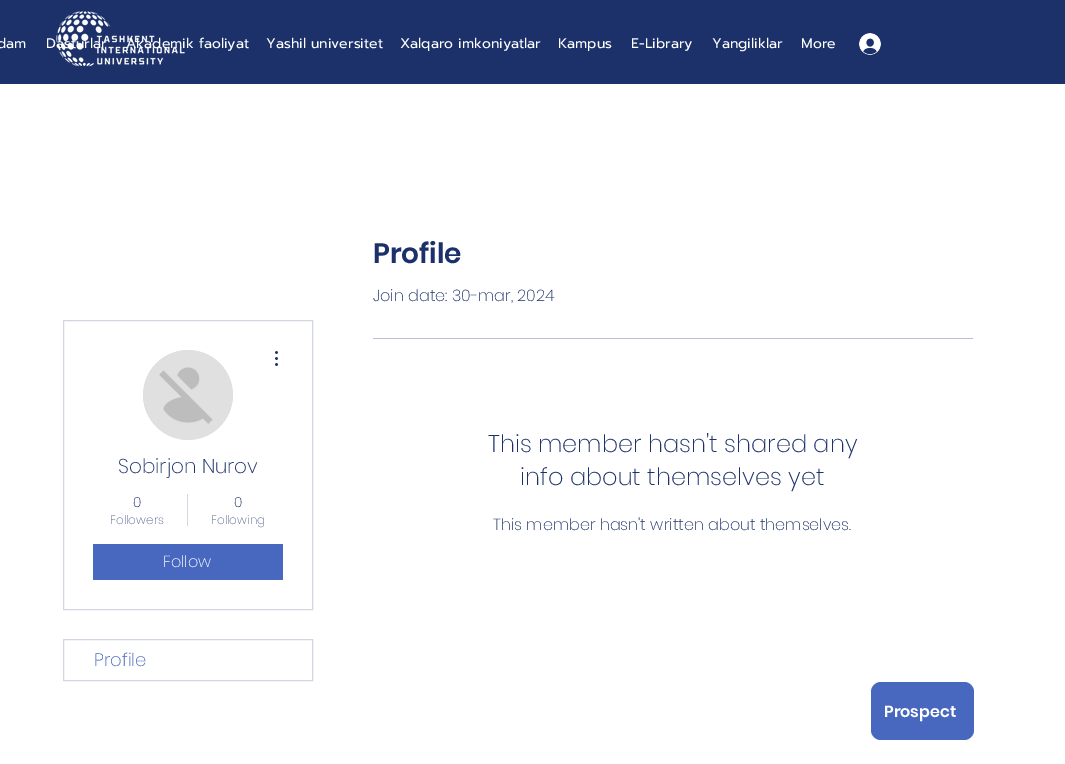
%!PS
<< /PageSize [1065 764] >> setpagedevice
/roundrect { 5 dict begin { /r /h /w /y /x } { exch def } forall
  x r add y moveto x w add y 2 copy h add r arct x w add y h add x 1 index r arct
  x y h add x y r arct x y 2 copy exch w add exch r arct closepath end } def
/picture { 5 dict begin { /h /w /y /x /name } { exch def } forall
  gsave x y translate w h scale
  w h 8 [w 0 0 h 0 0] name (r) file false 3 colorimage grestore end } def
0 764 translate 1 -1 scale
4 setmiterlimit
1 setgray
0 0 1065 764 rectfill
0.11 0.192 0.412 setrgbcolor
0 0 1065 84 rectfill
(img1.rgb) 56 11 129 56 picture
/Prompt-Regular [14 0 0 -14 0 0] selectfont
1 setgray
-3 48 moveto (dam) show
46 48 moveto (Dasturlar) show
126 48 moveto (Akademik faoliyat) show
266 48 moveto (Yashil universitet) show
400 48 moveto (Xalqaro imkoniyatlar) show
558 48 moveto (Kampus) show
631 48 moveto (E-Library) show
712 48 moveto (Yangiliklar) show
801 48 moveto (More) show
(img2.rgb) 859 33 22 22 picture
/Poppins-SemiBold [28 0 0 -28 0 0] selectfont
0.11 0.192 0.412 setrgbcolor
373 263 moveto (Profile) show
/Poppins-ExtraLight [16 0 0 -16 0 0] selectfont
373 301 moveto (Join date: 30-mar, 2024) show
0.733 0.757 0.824 setrgbcolor
373 338 600 1 rectfill
/Poppins-ExtraLight [24 0 0 -24 0 0] selectfont
0.11 0.192 0.412 setrgbcolor
488 452 moveto (This member hasn't shared any) show
520 485 moveto (info about themselves yet) show
/Poppins-ExtraLight [16 0 0 -16 0 0] selectfont
493 530 moveto (This member hasn't written about themselves.) show
0.824 0.839 0.882 setrgbcolor
63.5 320.5 249 289 rectstroke
0.847 setgray
newpath 188 395 45 0 360 arc closepath fill
(img3.rgb) 143 350 90 90 picture
(img4.rgb) 275 351 3 15 picture
/Poppins-ExtraLight [20 0 0 -20 0 0] selectfont
0.11 0.192 0.412 setrgbcolor
118 473 moveto (Sobirjon Nurov) show
/Poppins-ExtraLight [14 0 0 -14 0 0] selectfont
133 507 moveto (0) show
/Poppins-ExtraLight [12 0 0 -12 0 0] selectfont
0.376 0.435 0.588 setrgbcolor
110 524 moveto (Followers) show
0.824 0.839 0.882 setrgbcolor
187 494 1 32 rectfill
/Poppins-ExtraLight [14 0 0 -14 0 0] selectfont
0.11 0.192 0.412 setrgbcolor
234 507 moveto (0) show
/Poppins-ExtraLight [12 0 0 -12 0 0] selectfont
0.376 0.435 0.588 setrgbcolor
211 524 moveto (Following) show
0.282 0.408 0.753 setrgbcolor
93 544 190 36 rectfill
/Poppins-ExtraLight [16 0 0 -16 0 0] selectfont
1 setgray
163 567 moveto (Follow) show
0.824 0.839 0.882 setrgbcolor
63.5 639.5 249 41 rectstroke
/Poppins-ExtraLight [18 0 0 -18 0 0] selectfont
0.282 0.408 0.753 setrgbcolor
94 666 moveto (Profile) show
871 682 103 58 10 roundrect fill
/Poppins-SemiBold [16 0 0 -16 0 0] selectfont
1 setgray
884 717 moveto (Prospect) show
showpage
